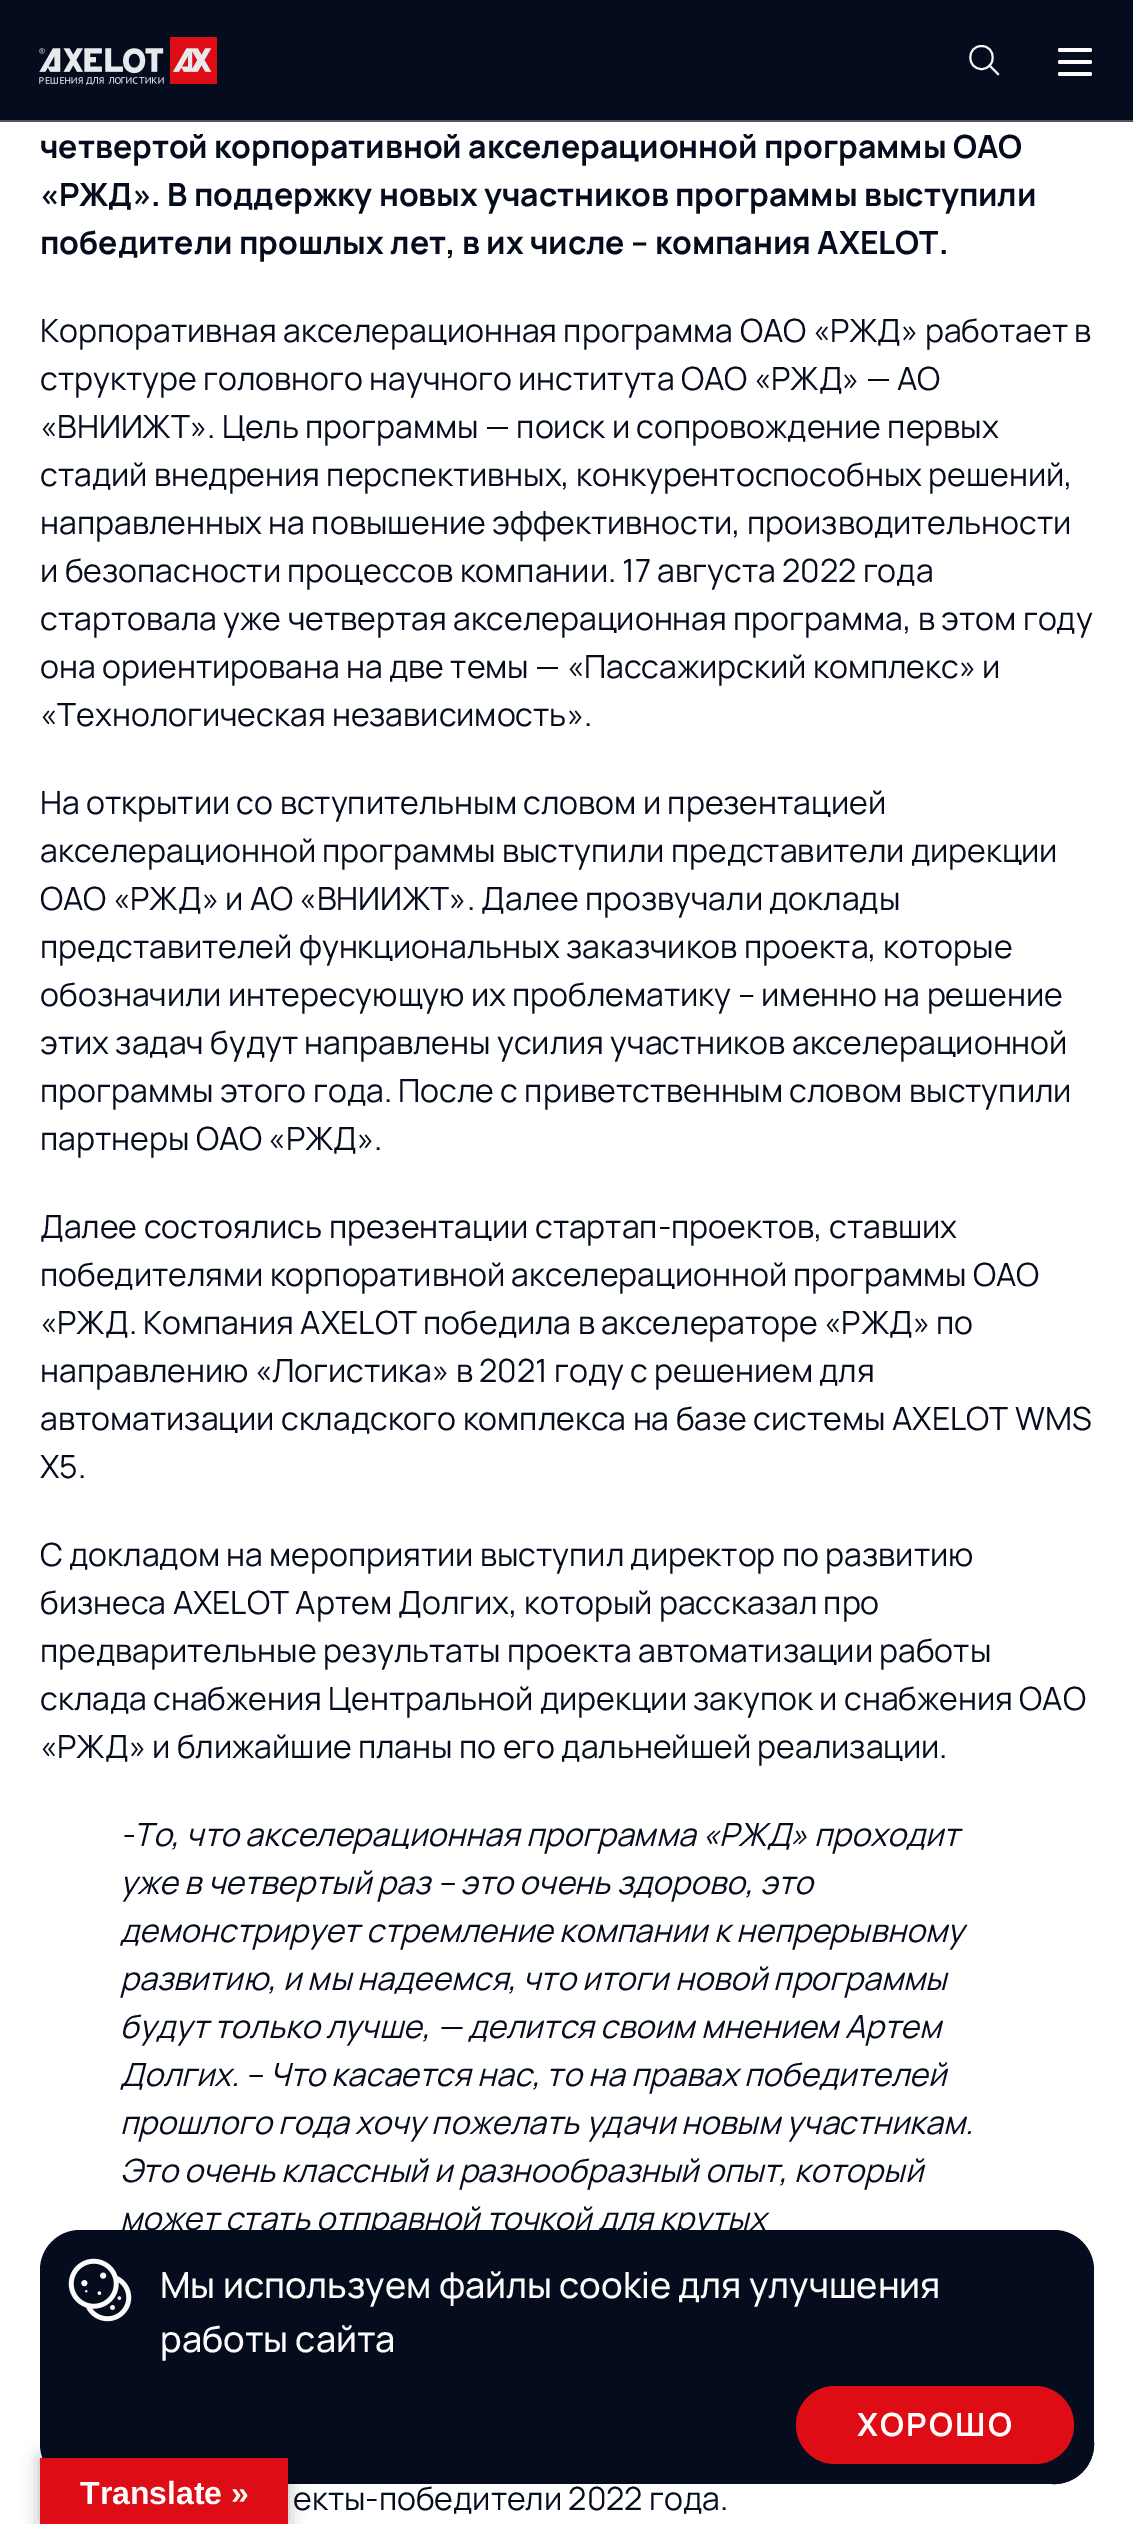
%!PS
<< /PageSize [1133 2524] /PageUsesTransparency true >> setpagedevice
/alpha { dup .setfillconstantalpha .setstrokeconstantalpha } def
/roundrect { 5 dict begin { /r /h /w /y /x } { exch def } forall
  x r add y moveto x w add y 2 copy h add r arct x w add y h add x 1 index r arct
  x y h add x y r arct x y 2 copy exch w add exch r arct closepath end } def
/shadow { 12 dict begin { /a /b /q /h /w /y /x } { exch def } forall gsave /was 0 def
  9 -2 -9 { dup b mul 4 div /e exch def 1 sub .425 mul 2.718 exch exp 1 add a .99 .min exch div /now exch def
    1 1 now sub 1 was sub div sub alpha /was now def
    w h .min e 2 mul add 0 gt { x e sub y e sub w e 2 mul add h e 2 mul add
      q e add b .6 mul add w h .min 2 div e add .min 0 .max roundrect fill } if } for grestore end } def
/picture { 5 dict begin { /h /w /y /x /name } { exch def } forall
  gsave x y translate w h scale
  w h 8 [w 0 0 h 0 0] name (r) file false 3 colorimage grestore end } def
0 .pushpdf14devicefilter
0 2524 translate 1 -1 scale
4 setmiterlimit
1 setgray
0 0 1133 2524 rectfill
0.02 0.047 0.118 setrgbcolor
0 0 1133 120 rectfill
0.31 0.329 0.38 setrgbcolor
0 120 1133 2 rectfill
(img1.rgb) 39 37 178 48 picture
0.976 setgray
1.9 setlinewidth
newpath 981.5 46 moveto 966.5 46 966.5 69 981.5 69 curveto 996.5 69 996.5 46 981.5 46 curveto closepath stroke
2 setlinecap
newpath 998 74 moveto 989.5 65.5 lineto stroke
1 setgray
1058 48 34 4 2 roundrect fill
1058 60 34 4 2 roundrect fill
1058 72 34 4 2 roundrect fill
/Manrope-Bold [32 0 0 -32 0 0] selectfont
0.02 0.047 0.118 setrgbcolor
40 158 moveto (четвертой корпоративной акселерационной программы ОАО) show
40 206 moveto («РЖД». В поддержку новых участников программы выступили) show
40 254 moveto (победители прошлых лет, в их числе – компания AXELOT.) show
/Manrope-Regular [32 0 0 -32 0 0] selectfont
40 342 moveto (Корпоративная акселерационная программа ОАО «РЖД» работает в) show
40 390 moveto (структуре головного научного института ОАО «РЖД» — АО) show
40 438 moveto («ВНИИЖТ». Цель программы — поиск и сопровождение первых) show
40 486 moveto (стадий внедрения перспективных, конкурентоспособных решений,) show
40 534 moveto (направленных на повышение эффективности, производительности) show
40 582 moveto (и безопасности процессов компании. 17 августа 2022 года) show
40 630 moveto (стартовала уже четвертая акселерационная программа, в этом году) show
40 678 moveto (она ориентирована на две темы — «Пассажирский комплекс» и) show
40 726 moveto («Технологическая независимость».) show
40 814 moveto (На открытии со вступительным словом и презентацией) show
40 862 moveto (акселерационной программы выступили представители дирекции) show
40 910 moveto (ОАО «РЖД» и АО «ВНИИЖТ». Далее прозвучали доклады) show
40 958 moveto (представителей функциональных заказчиков проекта, которые) show
40 1006 moveto (обозначили интересующую их проблематику – именно на решение) show
40 1054 moveto (этих задач будут направлены усилия участников акселерационной) show
40 1102 moveto (программы этого года. После с приветственным словом выступили) show
40 1150 moveto (партнеры ОАО «РЖД».) show
40 1238 moveto (Далее состоялись презентации стартап-проектов, ставших) show
40 1286 moveto (победителями корпоративной акселерационной программы ОАО) show
40 1334 moveto («РЖД. Компания AXELOT победила в акселераторе «РЖД» по) show
40 1382 moveto (направлению «Логистика» в 2021 году с решением для) show
40 1430 moveto (автоматизации складского комплекса на базе системы AXELOT WMS) show
40 1478 moveto (X5.) show
40 1566 moveto (С докладом на мероприятии выступил директор по развитию) show
40 1614 moveto (бизнеса AXELOT Артем Долгих, который рассказал про) show
40 1662 moveto (предварительные результаты проекта автоматизации работы) show
40 1710 moveto (склада снабжения Центральной дирекции закупок и снабжения ОАО) show
40 1758 moveto («РЖД» и ближайшие планы по его дальнейшей реализации.) show
/Manrope-Italic [32 0 0 -32 0 0] selectfont
120 1846 moveto (-То, что акселерационная программа «РЖД» проходит) show
120 1894 moveto (уже в четвертый раз – это очень здорово, это) show
120 1942 moveto (демонстрирует стремление компании к непрерывному) show
120 1990 moveto (развитию, и мы надеемся, что итоги новой программы) show
120 2038 moveto (будут только лучше, — делится своим мнением Артем) show
120 2086 moveto (Долгих. – Что касается нас, то на правах победителей) show
120 2134 moveto (прошлого года хочу пожелать удачи новым участникам.) show
120 2182 moveto (Это очень классный и разнообразный опыт, который) show
120 2230 moveto (может стать отправной точкой для крутых) show
/Manrope-Regular [32 0 0 -32 0 0] selectfont
293 2510 moveto (екты-победители 2022 года.) show
2 setlinewidth
0 setlinecap
newpath 1015 2444 moveto 1015 2422.5 1032.5 2405 1054 2405 curveto 1075.5 2405 1093 2422.5 1093 2444 curveto 1093 2465.5 1075.5 2483 1054 2483 curveto 1032.5 2483 1015 2465.5 1015 2444 curveto closepath stroke
40 2230 1054 254 40 roundrect fill
(img2.rgb) 68 2258 64 64 picture
/Manrope-Medium [36 0 0 -36 0 0] selectfont
0.988 setgray
160 2298 moveto (Мы используем файлы cookie для улучшения) show
160 2352 moveto (работы сайта) show
0.867 0.047 0.082 setrgbcolor
796 2386 278 78 39 roundrect fill
/Manrope-Bold [32 0 0 -32 0 0] selectfont
0.988 setgray
857 2436 moveto 2.25 0 (ХОРОШО) ashow
0 setgray
40 2458 248 66 0 9 0.3 shadow
0.867 0.047 0.082 setrgbcolor
40 2458 248 66 rectfill
/LiberationSans-Bold [32 0 0 -32 0 0] selectfont
0.988 setgray
80 2504 moveto (Translate ») show
.poppdf14devicefilter showpage
